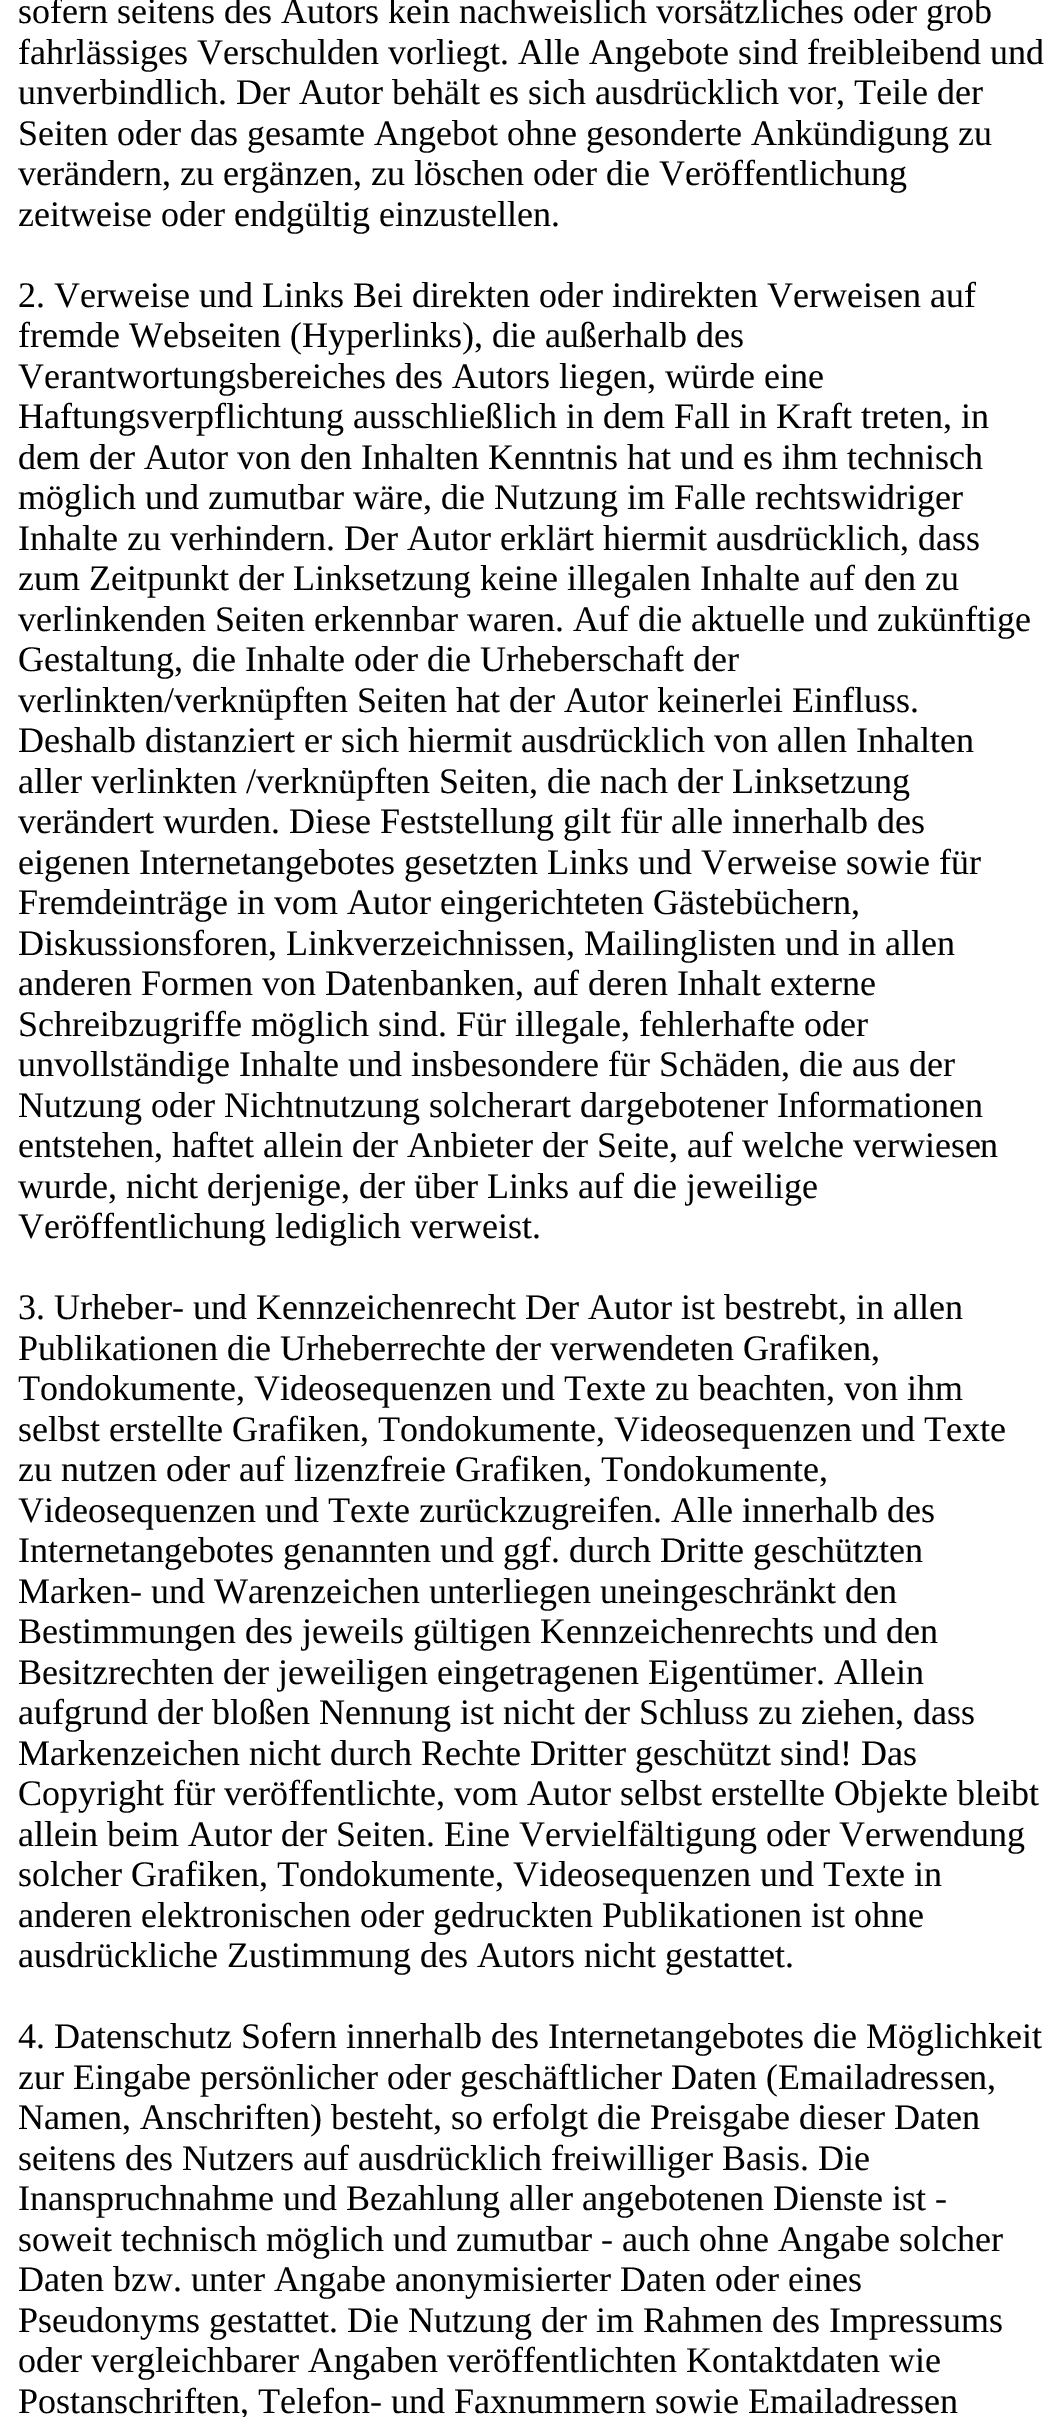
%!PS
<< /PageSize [1061 2417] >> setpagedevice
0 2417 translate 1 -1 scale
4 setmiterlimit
1 setgray
0 0 1061 2417 rectfill
/LiberationSerif-Regular [36 0 0 -36 0 0] selectfont
0 setgray
18 23 moveto (sofern seitens des Autors kein nachweislich vorsätzliches oder grob) show
18 64 moveto (fahrlässiges Verschulden vorliegt. Alle Angebote sind freibleibend und) show
18 104 moveto (unverbindlich. Der Autor behält es sich ausdrücklich vor, Teile der) show
18 145 moveto (Seiten oder das gesamte Angebot ohne gesonderte Ankündigung zu) show
18 185 moveto (verändern, zu ergänzen, zu löschen oder die Veröffentlichung) show
18 226 moveto (zeitweise oder endgültig einzustellen.) show
18 307 moveto (2. Verweise und Links Bei direkten oder indirekten Verweisen auf) show
18 347 moveto (fremde Webseiten \(Hyperlinks\), die außerhalb des) show
18 388 moveto (Verantwortungsbereiches des Autors liegen, würde eine) show
18 428 moveto (Haftungsverpflichtung ausschließlich in dem Fall in Kraft treten, in) show
18 469 moveto (dem der Autor von den Inhalten Kenntnis hat und es ihm technisch) show
18 509 moveto (möglich und zumutbar wäre, die Nutzung im Falle rechtswidriger) show
18 550 moveto (Inhalte zu verhindern. Der Autor erklärt hiermit ausdrücklich, dass) show
18 590 moveto (zum Zeitpunkt der Linksetzung keine illegalen Inhalte auf den zu) show
18 631 moveto (verlinkenden Seiten erkennbar waren. Auf die aktuelle und zukünftige) show
18 671 moveto (Gestaltung, die Inhalte oder die Urheberschaft der) show
18 712 moveto (verlinkten/verknüpften Seiten hat der Autor keinerlei Einfluss.) show
18 752 moveto (Deshalb distanziert er sich hiermit ausdrücklich von allen Inhalten) show
18 793 moveto (aller verlinkten /verknüpften Seiten, die nach der Linksetzung) show
18 833 moveto (verändert wurden. Diese Feststellung gilt für alle innerhalb des) show
18 874 moveto (eigenen Internetangebotes gesetzten Links und Verweise sowie für) show
18 914 moveto (Fremdeinträge in vom Autor eingerichteten Gästebüchern,) show
18 955 moveto (Diskussionsforen, Linkverzeichnissen, Mailinglisten und in allen) show
18 995 moveto (anderen Formen von Datenbanken, auf deren Inhalt externe) show
18 1036 moveto (Schreibzugriffe möglich sind. Für illegale, fehlerhafte oder) show
18 1076 moveto (unvollständige Inhalte und insbesondere für Schäden, die aus der) show
18 1117 moveto (Nutzung oder Nichtnutzung solcherart dargebotener Informationen) show
18 1157 moveto (entstehen, haftet allein der Anbieter der Seite, auf welche verwiesen) show
18 1198 moveto (wurde, nicht derjenige, der über Links auf die jeweilige) show
18 1238 moveto (Veröffentlichung lediglich verweist.) show
18 1319 moveto (3. Urheber- und Kennzeichenrecht Der Autor ist bestrebt, in allen) show
18 1360 moveto (Publikationen die Urheberrechte der verwendeten Grafiken,) show
18 1400 moveto (Tondokumente, Videosequenzen und Texte zu beachten, von ihm) show
18 1441 moveto (selbst erstellte Grafiken, Tondokumente, Videosequenzen und Texte) show
18 1481 moveto (zu nutzen oder auf lizenzfreie Grafiken, Tondokumente,) show
18 1522 moveto (Videosequenzen und Texte zurückzugreifen. Alle innerhalb des) show
18 1562 moveto (Internetangebotes genannten und ggf. durch Dritte geschützten) show
18 1603 moveto (Marken- und Warenzeichen unterliegen uneingeschränkt den) show
18 1643 moveto (Bestimmungen des jeweils gültigen Kennzeichenrechts und den) show
18 1684 moveto (Besitzrechten der jeweiligen eingetragenen Eigentümer. Allein) show
18 1724 moveto (aufgrund der bloßen Nennung ist nicht der Schluss zu ziehen, dass) show
18 1765 moveto (Markenzeichen nicht durch Rechte Dritter geschützt sind! Das) show
18 1805 moveto (Copyright für veröffentlichte, vom Autor selbst erstellte Objekte bleibt) show
18 1846 moveto (allein beim Autor der Seiten. Eine Vervielfältigung oder Verwendung) show
18 1886 moveto (solcher Grafiken, Tondokumente, Videosequenzen und Texte in) show
18 1927 moveto (anderen elektronischen oder gedruckten Publikationen ist ohne) show
18 1967 moveto (ausdrückliche Zustimmung des Autors nicht gestattet.) show
18 2048 moveto (4. Datenschutz Sofern innerhalb des Internetangebotes die Möglichkeit) show
18 2089 moveto (zur Eingabe persönlicher oder geschäftlicher Daten \(Emailadressen,) show
18 2129 moveto (Namen, Anschriften\) besteht, so erfolgt die Preisgabe dieser Daten) show
18 2170 moveto (seitens des Nutzers auf ausdrücklich freiwilliger Basis. Die) show
18 2210 moveto (Inanspruchnahme und Bezahlung aller angebotenen Dienste ist -) show
18 2251 moveto (soweit technisch möglich und zumutbar - auch ohne Angabe solcher) show
18 2291 moveto (Daten bzw. unter Angabe anonymisierter Daten oder eines) show
18 2332 moveto (Pseudonyms gestattet. Die Nutzung der im Rahmen des Impressums) show
18 2372 moveto (oder vergleichbarer Angaben veröffentlichten Kontaktdaten wie) show
18 2413 moveto (Postanschriften, Telefon- und Faxnummern sowie Emailadressen) show
showpage
